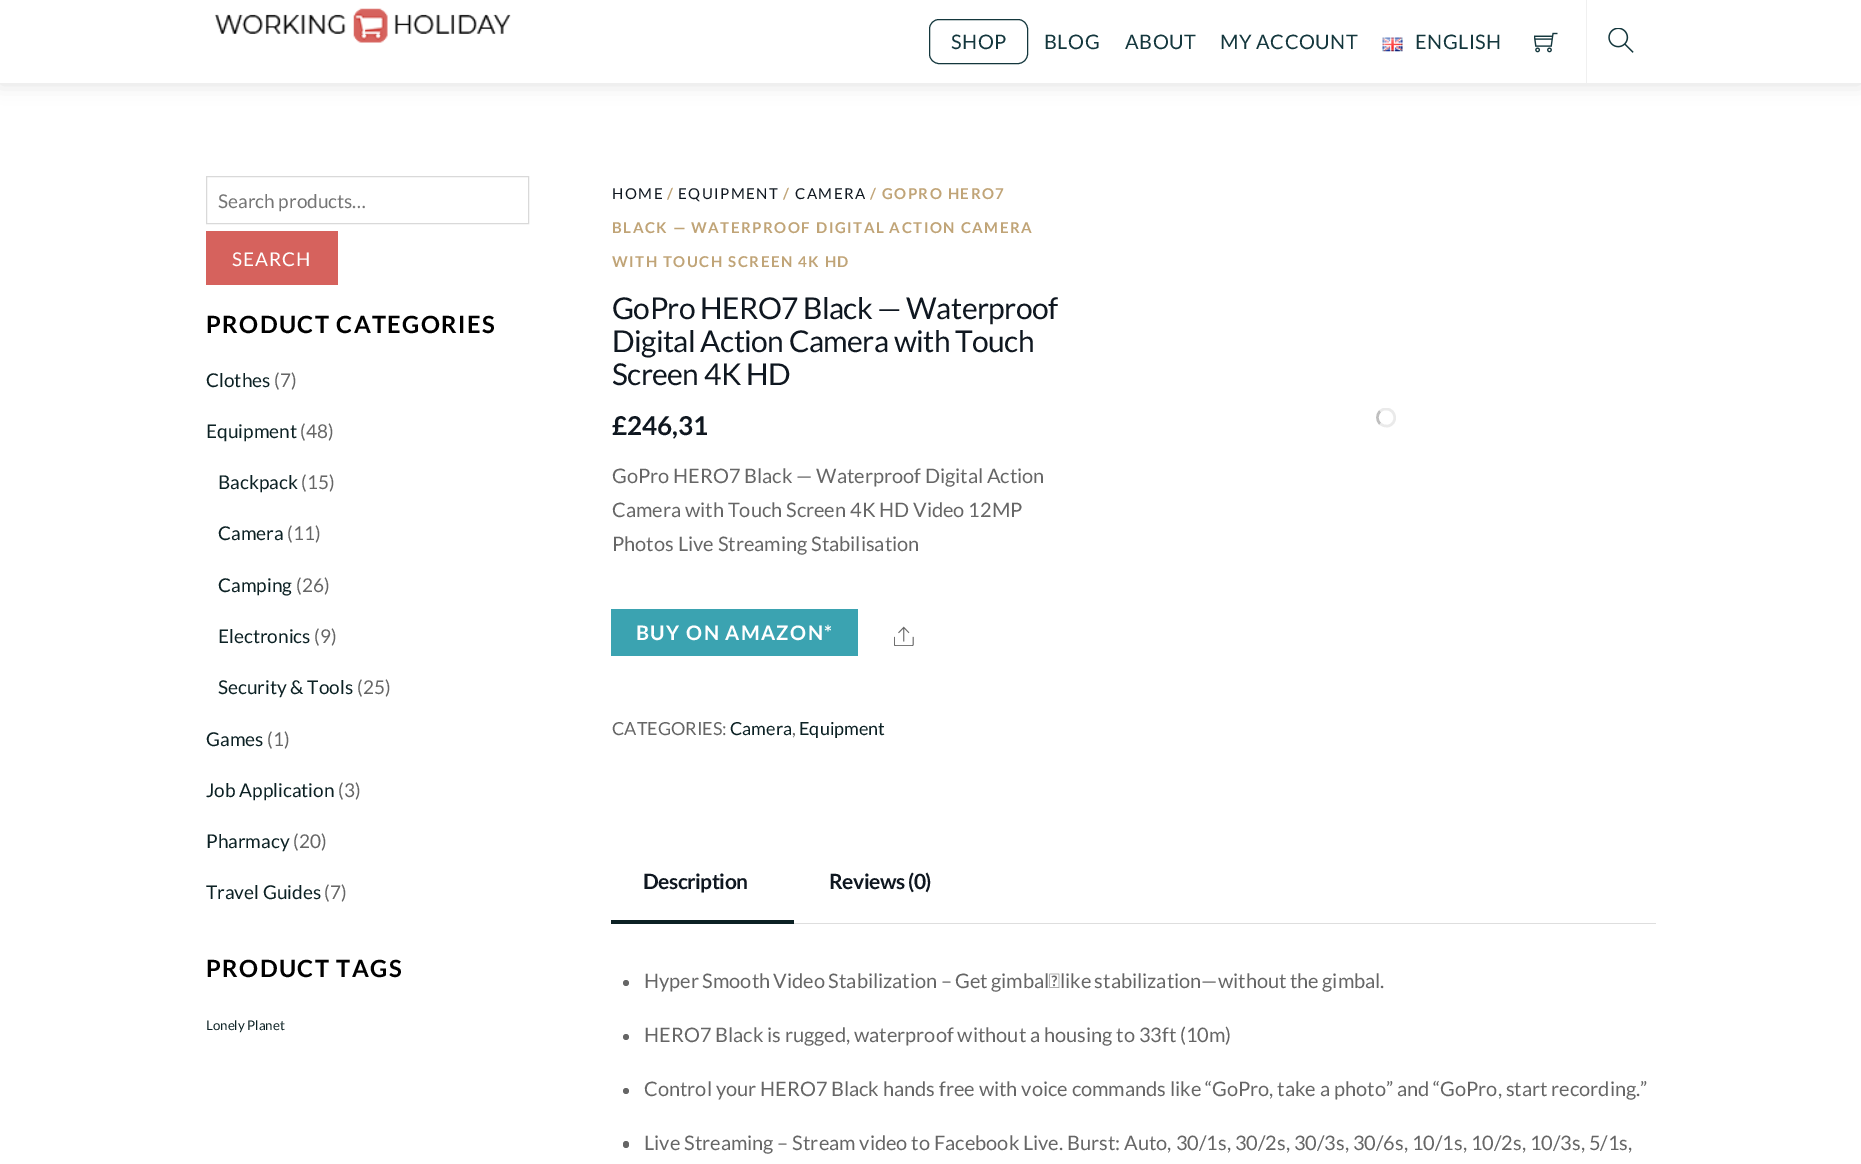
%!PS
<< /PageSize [1861 1164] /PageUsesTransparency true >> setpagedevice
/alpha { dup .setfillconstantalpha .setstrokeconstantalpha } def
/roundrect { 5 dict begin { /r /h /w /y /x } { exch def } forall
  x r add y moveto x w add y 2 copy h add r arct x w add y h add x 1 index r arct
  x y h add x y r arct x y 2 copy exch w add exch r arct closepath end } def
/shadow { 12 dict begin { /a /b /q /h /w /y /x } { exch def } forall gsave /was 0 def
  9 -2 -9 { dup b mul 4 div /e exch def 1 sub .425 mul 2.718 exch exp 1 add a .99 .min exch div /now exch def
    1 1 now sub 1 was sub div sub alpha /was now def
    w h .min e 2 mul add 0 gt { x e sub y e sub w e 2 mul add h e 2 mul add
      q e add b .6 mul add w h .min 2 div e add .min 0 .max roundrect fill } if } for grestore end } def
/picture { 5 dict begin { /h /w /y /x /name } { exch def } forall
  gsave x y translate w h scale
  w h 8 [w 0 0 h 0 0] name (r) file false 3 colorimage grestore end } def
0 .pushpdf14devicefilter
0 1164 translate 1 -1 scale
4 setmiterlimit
1 setgray
0 0 1861 1164 rectfill
gsave
newpath 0 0 moveto 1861 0 lineto 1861 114 lineto 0 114 lineto closepath 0 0 moveto 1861 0 lineto 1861 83 lineto 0 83 lineto closepath eoclip newpath
0 setgray
0 1 1861 83 0 9.5 0.12 shadow
grestore
0.9 alpha
0 82 1861 1 rectfill
1 alpha
(img1.rgb) 214 8 297 35 picture
0.078 0.216 0.239 setrgbcolor
929.5 19.5 98 44 9.5 roundrect stroke
/Lato-Regular [20 0 0 -20 0 0] selectfont
951 49 moveto 0.5 0 (SHOP) ashow
1044 49 moveto 0.5 0 (BLOG) ashow
1125 49 moveto 0.5 0 (ABOUT) ashow
1220 49 moveto 0.5 0 (MY ACCOUNT) ashow
(img2.rgb) 1382 37 21 15 picture
1415 49 moveto 0.5 0 (ENGLISH) ashow
(img3.rgb) 1534 32 24 21 picture
0.941 setgray
1586 0 1 83 rectfill
(img4.rgb) 1608 28 26 25 picture
0.851 setgray
206.5 176.5 322 47 rectstroke
/Lato-Regular [19 0 0 -19 0 0] selectfont
0.459 setgray
218 208 moveto (Search products…) show
0.839 0.384 0.365 setrgbcolor
206 231 132 54 rectfill
1 setgray
232 266 moveto 1 0 (SEARCH) ashow
/Lato-Bold [23.75 0 0 -23.75 0 0] selectfont
0 setgray
206 333 moveto 1.4 0 (PRODUCT CATEGORIES) ashow
/Lato-Regular [19 0 0 -19 0 0] selectfont
0.047 0.129 0.141 setrgbcolor
206 387 moveto (Clothes) show
0.4 setgray
274 387 moveto (\(7\)) show
0.047 0.129 0.141 setrgbcolor
206 438 moveto (Equipment) show
0.4 setgray
300 438 moveto (\(48\)) show
0.047 0.129 0.141 setrgbcolor
218 489 moveto (Backpack) show
0.4 setgray
301 489 moveto (\(15\)) show
0.047 0.129 0.141 setrgbcolor
218 540 moveto (Camera) show
0.4 setgray
287 540 moveto (\(11\)) show
0.047 0.129 0.141 setrgbcolor
218 592 moveto (Camping) show
0.4 setgray
296 592 moveto (\(26\)) show
0.047 0.129 0.141 setrgbcolor
218 643 moveto (Electronics) show
0.4 setgray
314 643 moveto (\(9\)) show
0.047 0.129 0.141 setrgbcolor
218 694 moveto (Security & Tools) show
0.4 setgray
357 694 moveto (\(25\)) show
0.047 0.129 0.141 setrgbcolor
206 746 moveto (Games) show
0.4 setgray
267 746 moveto (\(1\)) show
0.047 0.129 0.141 setrgbcolor
206 797 moveto (Job Application) show
0.4 setgray
338 797 moveto (\(3\)) show
0.047 0.129 0.141 setrgbcolor
206 848 moveto (Pharmacy) show
0.4 setgray
293 848 moveto (\(20\)) show
0.047 0.129 0.141 setrgbcolor
206 899 moveto (Travel Guides) show
0.4 setgray
324 899 moveto (\(7\)) show
/Lato-Bold [23.75 0 0 -23.75 0 0] selectfont
0 setgray
206 977 moveto 1.4 0 (PRODUCT TAGS) ashow
/Lato-Regular [13.25 0 0 -13.25 0 0] selectfont
0.047 0.129 0.141 setrgbcolor
206 1030 moveto (Lonely Planet) show
/Lato-Regular [15 0 0 -15 0 0] selectfont
0.059 0.09 0.125 setrgbcolor
612 199 moveto 1.5 0 (HOME) ashow
/Lato-Bold [15 0 0 -15 0 0] selectfont
0.753 0.643 0.467 setrgbcolor
667 199 moveto 1.5 0 (/) ashow
/Lato-Regular [15 0 0 -15 0 0] selectfont
0.059 0.09 0.125 setrgbcolor
678 199 moveto 1.5 0 (EQUIPMENT) ashow
/Lato-Bold [15 0 0 -15 0 0] selectfont
0.753 0.643 0.467 setrgbcolor
783 199 moveto 1.5 0 (/) ashow
/Lato-Regular [15 0 0 -15 0 0] selectfont
0.059 0.09 0.125 setrgbcolor
795 199 moveto 1.5 0 (CAMERA) ashow
/Lato-Bold [15 0 0 -15 0 0] selectfont
0.753 0.643 0.467 setrgbcolor
870 199 moveto 1.5 0 (/ GOPRO HERO7) ashow
612 233 moveto 1.5 0 (BLACK — WATERPROOF DIGITAL ACTION CAMERA) ashow
612 267 moveto 1.5 0 (WITH TOUCH SCREEN 4K HD) ashow
/Lato-Regular [30 0 0 -30 0 0] selectfont
0.059 0.09 0.125 setrgbcolor
612 319 moveto -0.6 0 (GoPro HERO7 Black — Waterproof) ashow
612 352 moveto -0.6 0 (Digital Action Camera with Touch) ashow
612 385 moveto -0.6 0 (Screen 4K HD) ashow
/Lato-Bold [26 0 0 -26 0 0] selectfont
612 435 moveto (£246,31) show
/Lato-Regular [20 0 0 -20 0 0] selectfont
0.4 setgray
612 483 moveto (GoPro HERO7 Black — Waterproof Digital Action) show
612 517 moveto (Camera with Touch Screen 4K HD Video 12MP) show
612 551 moveto (Photos Live Streaming Stabilisation) show
0.231 0.639 0.694 setrgbcolor
611 609 247 47 rectfill
/Lato-Bold [20 0 0 -20 0 0] selectfont
1 setgray
636 640 moveto 1.4 0 (BUY ON AMAZON*) ashow
(img5.rgb) 894 626 20 20 picture
/Lato-Regular [18 0 0 -18 0 0] selectfont
0.4 setgray
612 735 moveto (CATEGORIES:) show
0.047 0.129 0.141 setrgbcolor
730 735 moveto (Camera) show
0.4 setgray
792 735 moveto (,) show
0.047 0.129 0.141 setrgbcolor
799 735 moveto (Equipment) show
gsave
1376 408 20 20 rectclip
0.918 setgray
2.5 setlinewidth
newpath 1380 411.5 moveto 1381.5 409.5 1384 409 1386 409 curveto 1396.5 409 1398 424 1388 426 curveto 1385 426.5 1382 425.5 1380 423.5 curveto stroke
grestore
0.6 alpha
0.584 setgray
2.5 setlinewidth
newpath 1380 423.5 moveto 1376.5 420.5 1376.5 414.5 1380 411.5 curveto stroke
1 alpha
0.047 0.129 0.141 setrgbcolor
611 920 183 4 rectfill
/Lato-Bold [21 0 0 -21 0 0] selectfont
0.059 0.09 0.125 setrgbcolor
643 889 moveto -0.5 0 (Description) ashow
829 889 moveto -0.5 0 (Reviews \(0\)) ashow
0.871 setgray
794 923 862 1 rectfill
0.4 setgray
newpath 626 983 3 0 360 arc closepath fill
/Lato-Regular [20 0 0 -20 0 0] selectfont
644 988 moveto -0.5 0 32 (Hyper Smooth Video Stabilization – Get gimbal‑like stabilization—without the gimbal.) widthshow
newpath 626 1037 3 0 360 arc closepath fill
644 1042 moveto (HERO7 Black is rugged, waterproof without a housing to 33ft \(10m\)) show
newpath 626 1091 3 0 360 arc closepath fill
644 1096 moveto (Control your HERO7 Black hands free with voice commands like “GoPro, take a photo” and “GoPro, start recording.”) show
623 1141 6 7 3 roundrect fill
644 1150 moveto (Live Streaming – Stream video to Facebook Live. Burst: Auto, 30/1s, 30/2s, 30/3s, 30/6s, 10/1s, 10/2s, 10/3s, 5/1s,) show
.poppdf14devicefilter showpage
